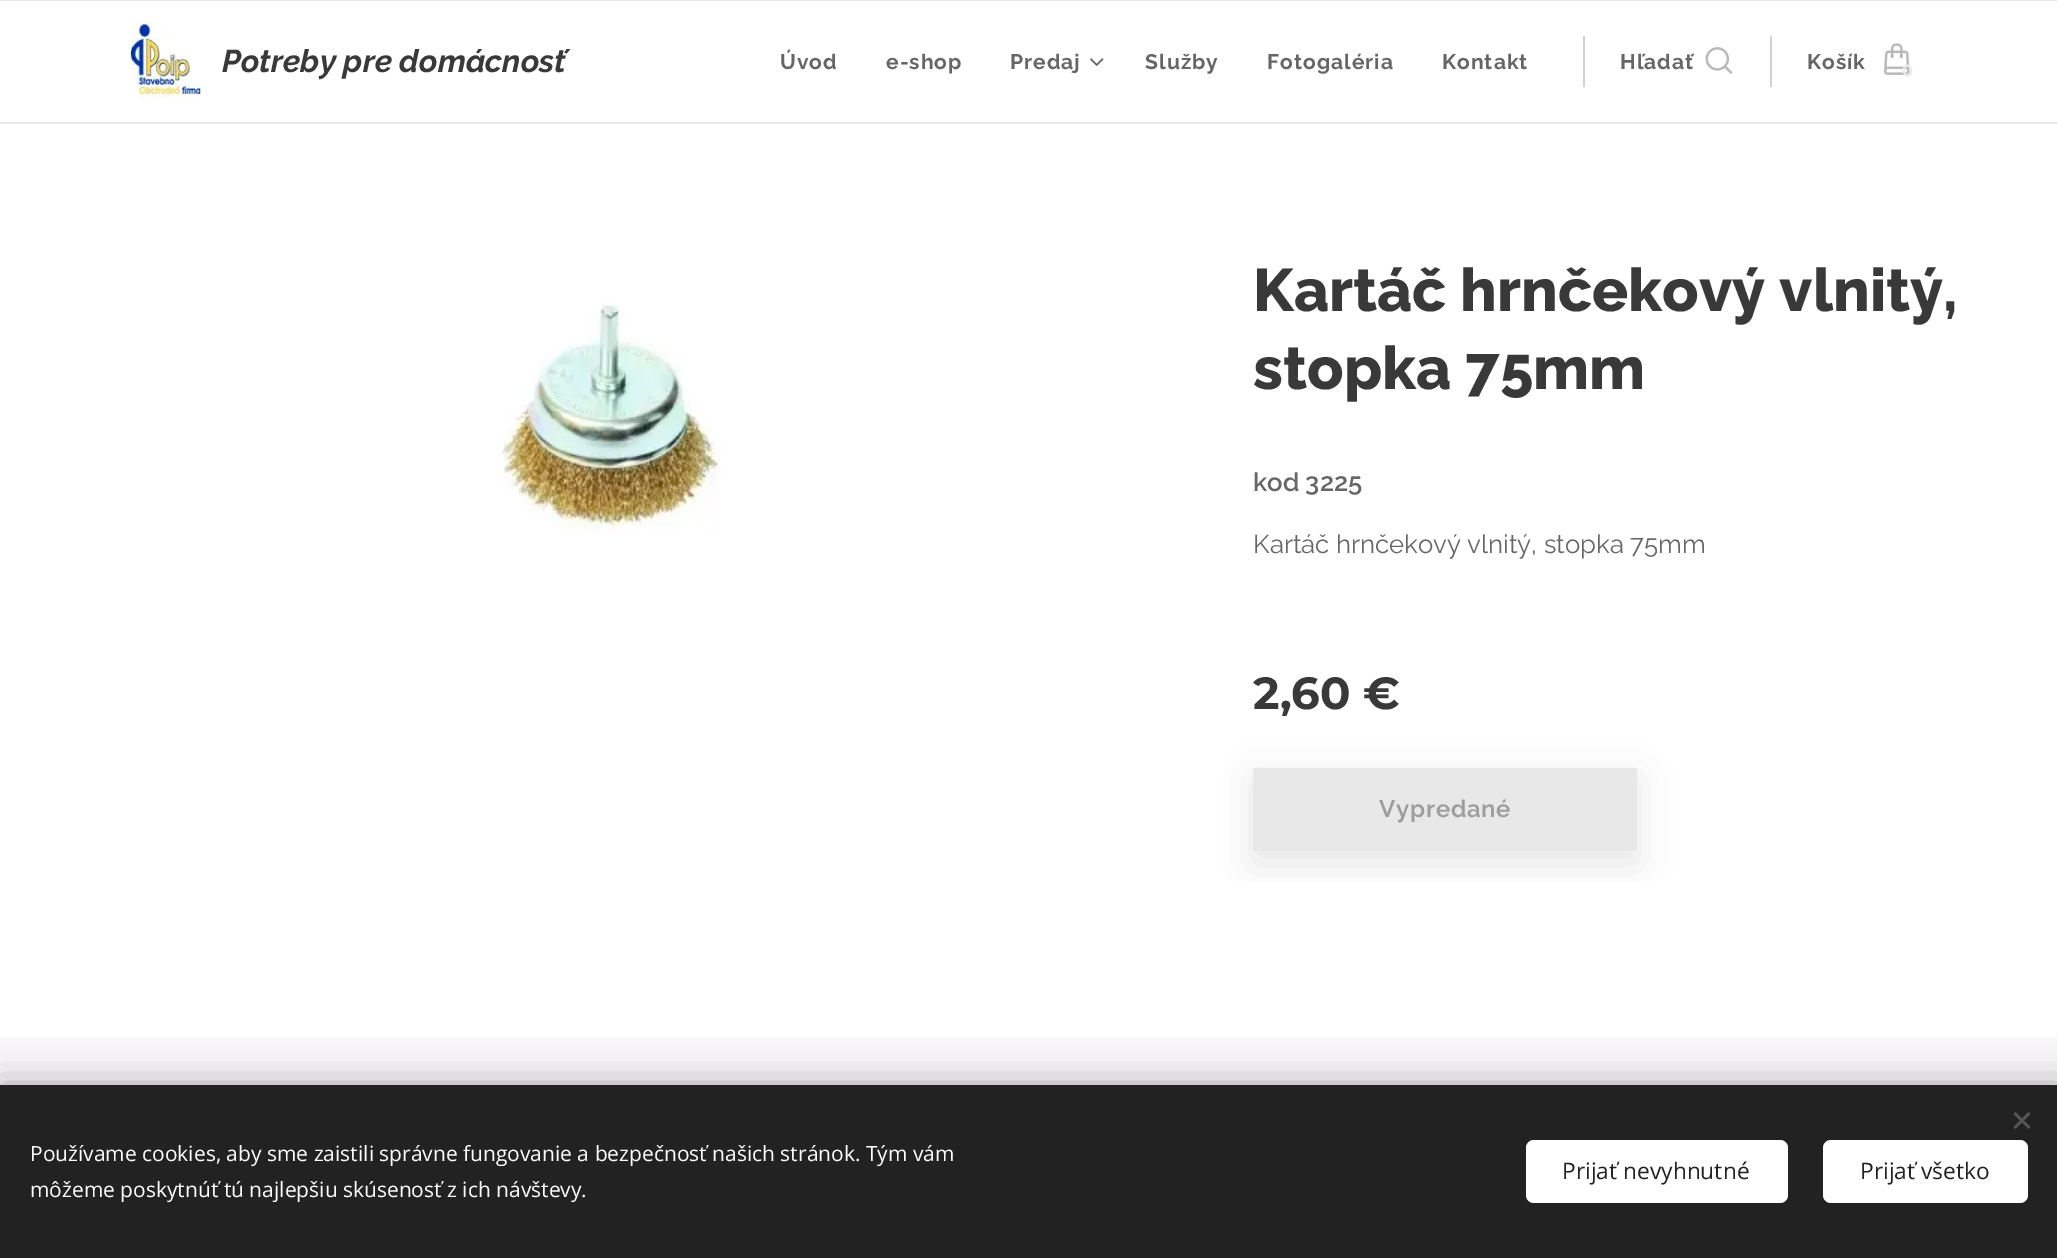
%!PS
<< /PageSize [2057 1258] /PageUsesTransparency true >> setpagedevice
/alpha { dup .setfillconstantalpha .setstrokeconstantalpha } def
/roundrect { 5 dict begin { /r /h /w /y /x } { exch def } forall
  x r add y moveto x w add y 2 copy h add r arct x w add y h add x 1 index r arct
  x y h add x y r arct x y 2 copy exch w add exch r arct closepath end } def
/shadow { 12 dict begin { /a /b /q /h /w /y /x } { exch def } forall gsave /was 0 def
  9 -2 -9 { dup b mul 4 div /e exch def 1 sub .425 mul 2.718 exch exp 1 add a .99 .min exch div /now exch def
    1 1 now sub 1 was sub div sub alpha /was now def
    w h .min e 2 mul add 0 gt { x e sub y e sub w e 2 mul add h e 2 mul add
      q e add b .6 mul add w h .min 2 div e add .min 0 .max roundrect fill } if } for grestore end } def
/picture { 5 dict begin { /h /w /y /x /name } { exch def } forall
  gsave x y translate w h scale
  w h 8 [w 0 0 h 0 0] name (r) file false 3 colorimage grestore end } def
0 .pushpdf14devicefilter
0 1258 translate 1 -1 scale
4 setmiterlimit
1 setgray
0 0 2057 1258 rectfill
(img1.rgb) 129 22 75 78 picture
/Raleway-BoldItalic [31.5 0 0 -31.5 0 0] selectfont
0.224 setgray
222 72 moveto (Potreby pre domácnosť) show
/Raleway-Bold [21 0 0 -21 0 0] selectfont
0.4 setgray
780 69 moveto 1 0 (Úvod) ashow
886 69 moveto 1 0 (e-shop) ashow
1010 69 moveto 1 0 (Predaj) ashow
(img2.rgb) 1090 58 14 8 picture
1145 69 moveto 1 0 (Služby) ashow
1267 69 moveto 1 0 (Fotogaléria) ashow
1442 69 moveto 1 0 (Kontakt) ashow
0.91 setgray
0 0 2057 1 rectfill
0.82 setgray
1583 36 2 51 rectfill
0.4 setgray
1620 69 moveto 1 0 (Hľadať) ashow
(img3.rgb) 1705 47 28 27 picture
0.82 setgray
1770 36 2 51 rectfill
0.4 setgray
1807 69 moveto 1 0 (Košík) ashow
(img4.rgb) 1884 43 26 32 picture
/Montserrat-Bold [16 0 0 -16 0 0] selectfont
0.914 setgray
1902 76 moveto (0) show
0.91 setgray
0 122 2057 2 rectfill
(img5.rgb) 498 303 223 231 picture
/Raleway-ExtraBold [60 0 0 -60 0 0] selectfont
0.224 setgray
1253 311 moveto (Kartáč hrnčekový vlnitý,) show
1253 389 moveto (stopka 75mm) show
/Raleway-SemiBold [25.75 0 0 -25.75 0 0] selectfont
0.4 setgray
1253 491 moveto (kod 3225) show
/Raleway-Regular [25.75 0 0 -25.75 0 0] selectfont
1253 553 moveto (Kartáč hrnčekový vlnitý, stopka 75mm) show
/Montserrat-Bold [45 0 0 -45 0 0] selectfont
0.224 setgray
1253 709 moveto (2,60 €) show
gsave
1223 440 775 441 rectclip
0 setgray
1253 780 384 83 0 19 0.1 shadow
grestore
0.91 setgray
1253 768 384 83 rectfill
/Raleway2-SemiBold [24 0 0 -24 0 0] selectfont
0.616 setgray
1379 817 moveto 0.75 0 (Vypredané) ashow
0.976 0.969 0.98 setrgbcolor
0 1037 2057 48 rectfill
0 setgray
0 1085 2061 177 0 19 0.33 shadow
0.133 setgray
0 1085 2057 173 rectfill
0.333 setgray
newpath 2013.5 1127 moveto 2028.5 1112 lineto 2030.5 1114 lineto 2015.5 1129 lineto closepath fill
newpath 2015.5 1112 moveto 2030.5 1127 lineto 2028.5 1129 lineto 2013.5 1114 lineto closepath fill
/OpenSans-Regular [21 0 0 -21 0 0] selectfont
1 setgray
30 1161 moveto (Používame cookies, aby sme zaistili správne fungovanie a bezpečnosť našich stránok. Tým vám) show
30 1197 moveto (môžeme poskytnúť tú najlepšiu skúsenosť z ich návštevy.) show
1526 1140 262 63 8 roundrect fill
/OpenSans-Regular [22.75 0 0 -22.75 0 0] selectfont
0.133 setgray
1562 1179 moveto (Prijať nevyhnutné) show
1 setgray
1823 1140 205 63 8 roundrect fill
0.133 setgray
1860 1179 moveto (Prijať všetko) show
.poppdf14devicefilter showpage
